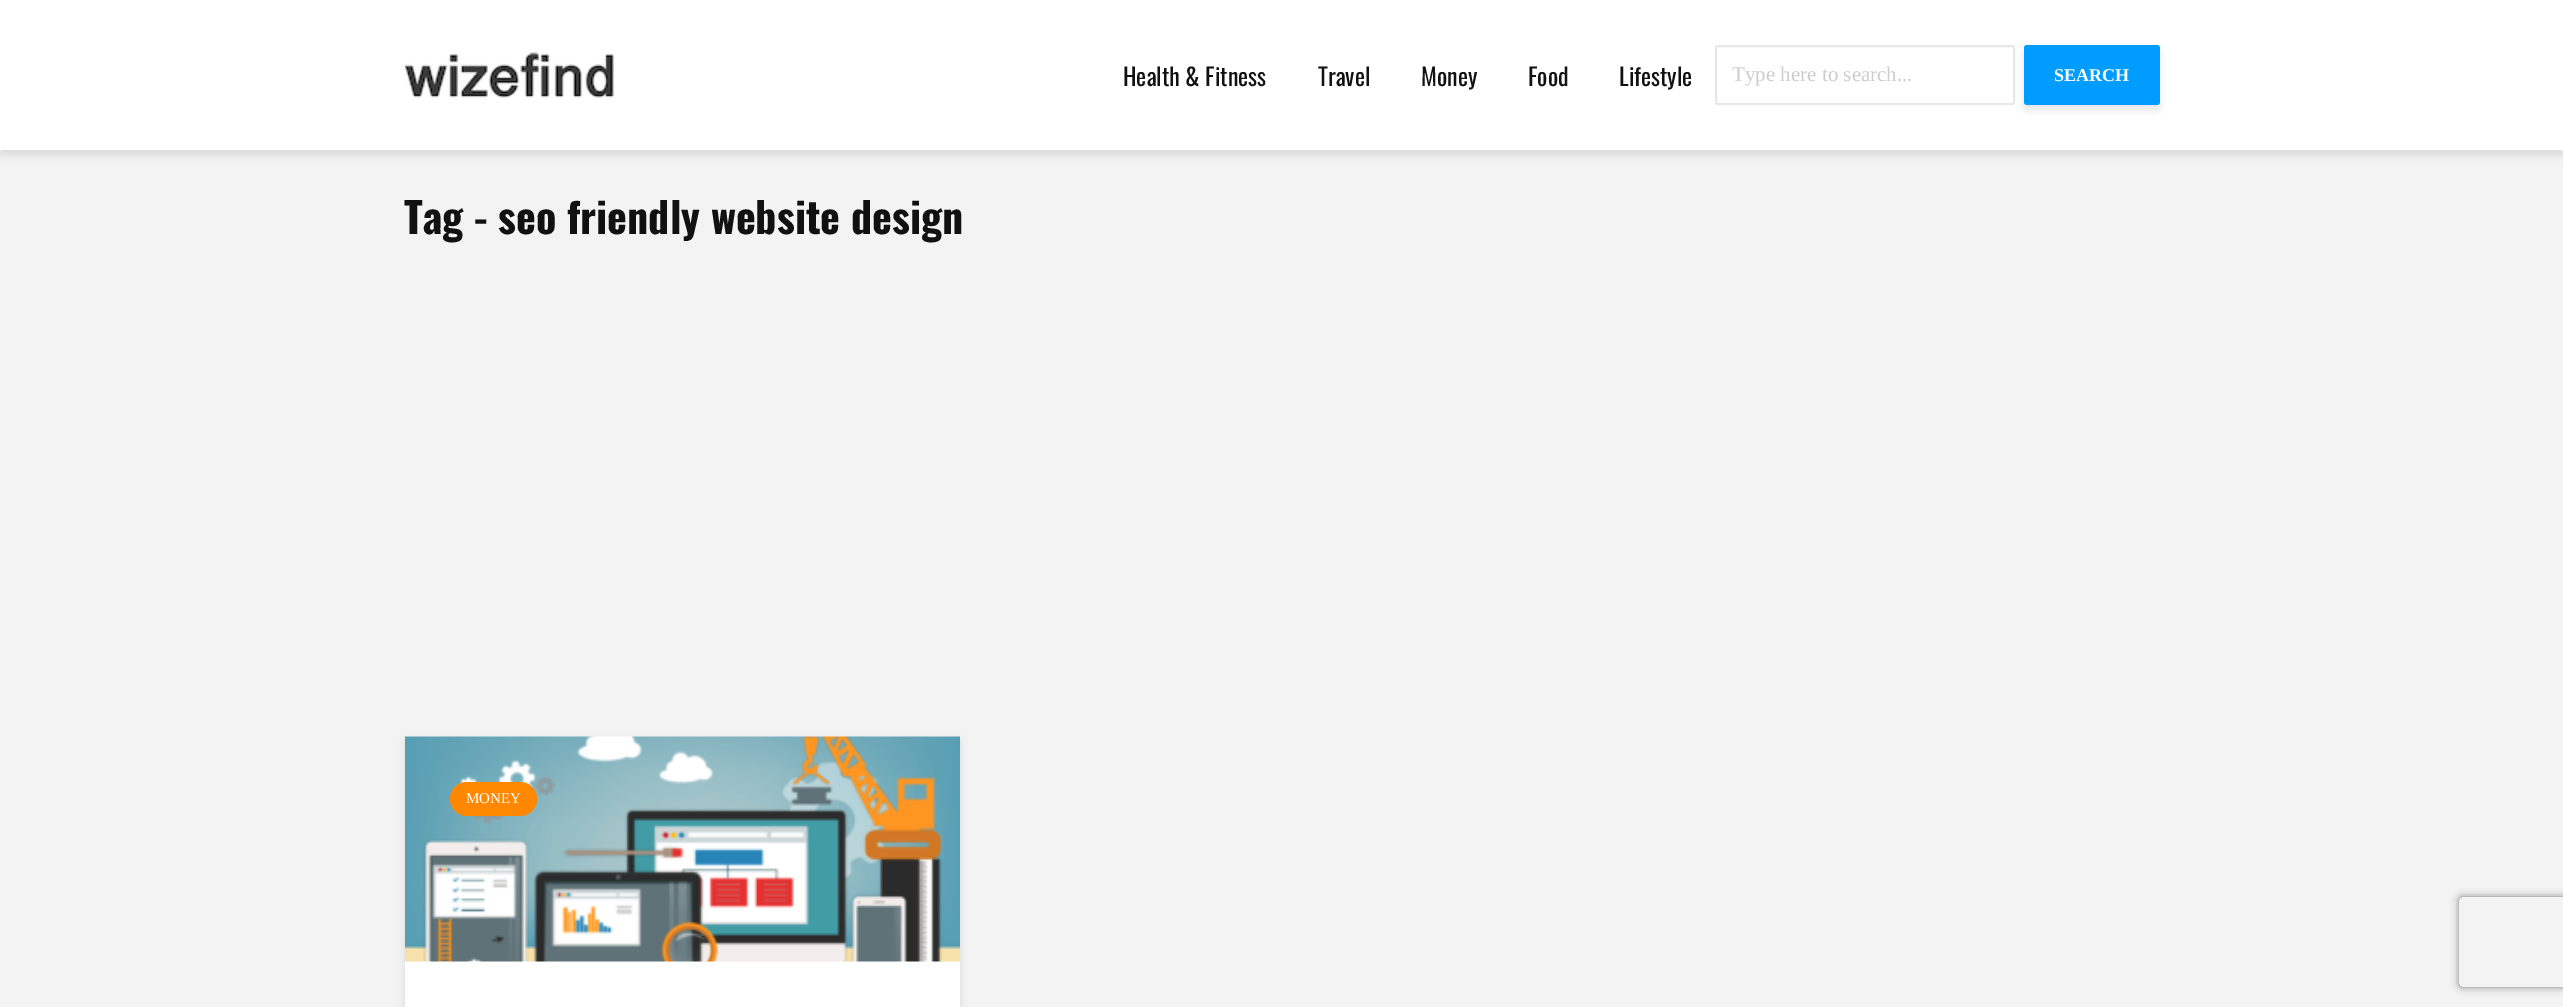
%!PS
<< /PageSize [2563 1007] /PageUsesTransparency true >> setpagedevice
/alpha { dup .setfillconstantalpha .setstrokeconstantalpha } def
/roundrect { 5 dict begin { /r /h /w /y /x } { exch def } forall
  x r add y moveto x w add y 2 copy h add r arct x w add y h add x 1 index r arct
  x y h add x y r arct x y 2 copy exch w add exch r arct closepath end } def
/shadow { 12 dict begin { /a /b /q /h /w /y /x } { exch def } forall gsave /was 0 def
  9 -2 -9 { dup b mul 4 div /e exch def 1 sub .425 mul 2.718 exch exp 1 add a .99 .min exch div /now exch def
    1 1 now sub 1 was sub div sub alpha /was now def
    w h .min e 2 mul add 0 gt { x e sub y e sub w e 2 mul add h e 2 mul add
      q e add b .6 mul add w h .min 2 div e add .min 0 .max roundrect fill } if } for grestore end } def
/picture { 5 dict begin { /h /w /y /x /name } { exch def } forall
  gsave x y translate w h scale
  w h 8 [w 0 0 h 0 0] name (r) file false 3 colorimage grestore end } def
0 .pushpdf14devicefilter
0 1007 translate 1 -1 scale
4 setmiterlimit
0.953 setgray
0 0 2563 1007 rectfill
0 0.004 0.004 setrgbcolor
0 5 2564 150 0 4 0.1 shadow
1 setgray
0 0 2563 150 rectfill
(img1.rgb) 405 52 209 46 picture
/Oswald-Regular [24 0 0 -24 0 0] selectfont
0.067 setgray
1123 86 moveto (Health & Fitness) show
1318 86 moveto (Travel) show
1421 86 moveto (Money) show
1528 86 moveto (Food) show
1619 86 moveto (Lifestyle) show
0.906 setgray
2 setlinewidth
1716 46 298 58 2 roundrect stroke
/LiberationSerif-Regular [21 0 0 -21 0 0] selectfont
0.8 setgray
1732 81 moveto (Type here to search...) show
0 setgray
2024 50 136 60 3 4 0.1 shadow
0 0.612 1 setrgbcolor
2024 45 136 60 3 roundrect fill
/LiberationSerif-Bold [18 0 0 -18 0 0] selectfont
1 setgray
2054 81 moveto (SEARCH) show
/Oswald-Bold [42 0 0 -42 0 0] selectfont
0.067 setgray
404 234 moveto (Tag - seo friendly website design) show
0 0.004 0.004 setrgbcolor
405 741 555 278 0 4 0.1 shadow
1 setgray
405 961 555 46 rectfill
(img2.rgb) 405 736 555 226 picture
1 0.533 0 setrgbcolor
450 782 87 34 17 roundrect fill
/LiberationSerif-Regular [15 0 0 -15 0 0] selectfont
1 setgray
466 803 moveto (MONEY) show
gsave
newpath 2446 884 moveto 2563 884 lineto 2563 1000 lineto 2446 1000 lineto closepath 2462 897 moveto 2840 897 lineto 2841.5 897 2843 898.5 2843 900 curveto 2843 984 lineto 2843 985.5 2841.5 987 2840 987 curveto 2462 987 lineto 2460.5 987 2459 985.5 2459 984 curveto 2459 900 lineto 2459 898.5 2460.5 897 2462 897 curveto closepath eoclip newpath
0.502 setgray
2459 897 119 90 3 4 1 shadow
grestore
.poppdf14devicefilter showpage
